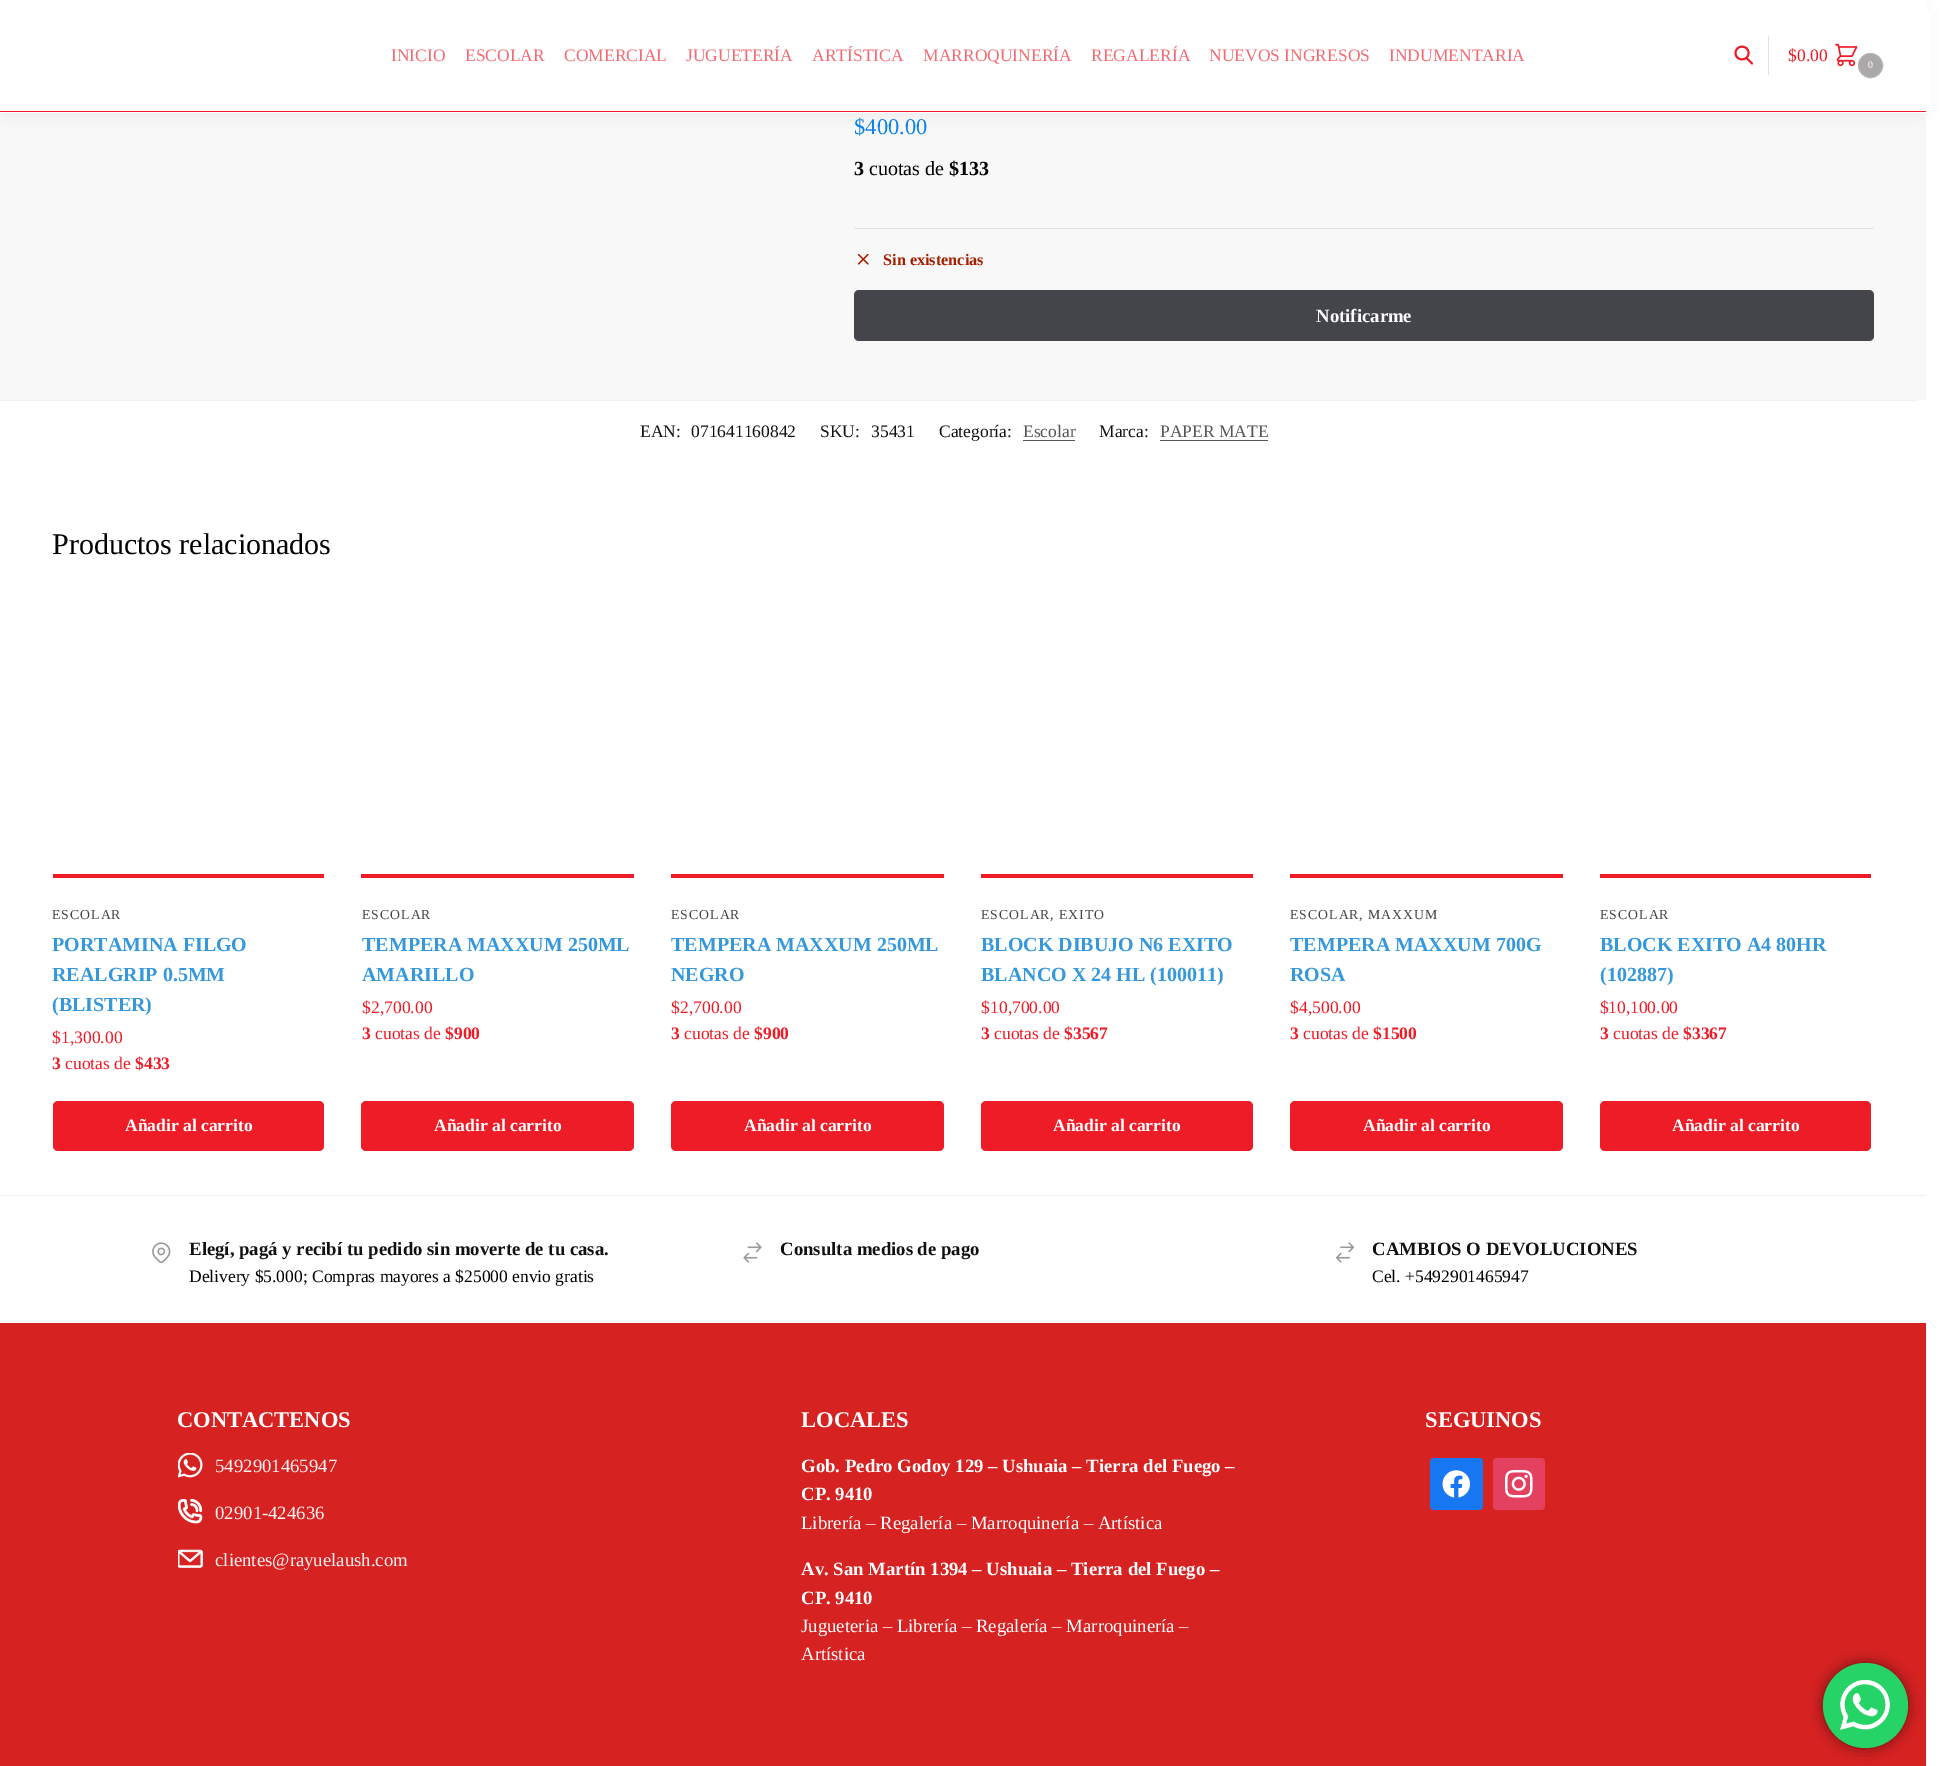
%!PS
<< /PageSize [1945 1766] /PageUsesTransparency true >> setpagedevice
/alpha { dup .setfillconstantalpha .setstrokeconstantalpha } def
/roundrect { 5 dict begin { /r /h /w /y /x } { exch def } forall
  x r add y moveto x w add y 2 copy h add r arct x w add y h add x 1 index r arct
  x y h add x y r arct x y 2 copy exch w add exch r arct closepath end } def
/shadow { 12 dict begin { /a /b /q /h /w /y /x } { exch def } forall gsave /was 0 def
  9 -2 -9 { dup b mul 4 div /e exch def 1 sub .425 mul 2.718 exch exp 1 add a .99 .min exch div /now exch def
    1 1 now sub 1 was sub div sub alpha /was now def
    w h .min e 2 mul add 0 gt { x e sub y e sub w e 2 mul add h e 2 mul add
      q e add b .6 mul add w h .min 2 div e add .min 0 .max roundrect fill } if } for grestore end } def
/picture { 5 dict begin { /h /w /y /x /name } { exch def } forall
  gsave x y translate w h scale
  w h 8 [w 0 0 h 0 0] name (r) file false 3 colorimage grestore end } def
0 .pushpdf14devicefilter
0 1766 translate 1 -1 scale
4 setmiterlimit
1 setgray
0 0 1945 1766 rectfill
0.973 setgray
0 113 1926 287 rectfill
0 setgray
6 10 1914 100 0 9.5 0.08 shadow
1 setgray
0 0 1926 113 rectfill
0.929 0.11 0.149 setrgbcolor
0 111 1926 1 rectfill
/LiberationSerif-Regular [17.5 0 0 -17.5 0 0] selectfont
0.953 0.42 0.447 setrgbcolor
391 61 moveto (INICIO) show
465 61 moveto (ESCOLAR) show
564 61 moveto (COMERCIAL) show
686 61 moveto (JUGUETERÍA) show
812 61 moveto (ARTÍSTICA) show
923 61 moveto (MARROQUINERÍA) show
1091 61 moveto (REGALERÍA) show
1209 61 moveto (NUEVOS INGRESOS) show
1389 61 moveto (INDUMENTARIA) show
0.929 0.11 0.149 setrgbcolor
1.9 setlinewidth
1 setlinecap
1 setlinejoin
newpath 1752 63.5 moveto 1746.5 58 lineto 1748.5 53 moveto 1748.5 61.5 1735.5 61.5 1735.5 53 curveto 1735.5 44.5 1748.5 44.5 1748.5 53 curveto closepath stroke
0.886 setgray
1768 36 1 39 rectfill
0.929 0.11 0.149 setrgbcolor
1788 61 moveto ($0.00) show
(img1.rgb) 1835 43 23 24 picture
0.671 0.659 0.659 setrgbcolor
newpath 1870.5 65.5 12 0 360 arc closepath gsave fill grestore
0.706 0.698 0.698 setrgbcolor
1 setlinewidth
0 setlinecap
0 setlinejoin
stroke
/LiberationSerif-Regular [10 0 0 -10 0 0] selectfont
1 setgray
1868 68 moveto (0) show
1926 10 5 100 rectfill
/LiberationSerif-Regular [22.5 0 0 -22.5 0 0] selectfont
0.051 0.51 0.91 setrgbcolor
854 134 moveto ($400.00) show
/LiberationSerif-Bold [20 0 0 -20 0 0] selectfont
0 setgray
854 175 moveto (3) show
/LiberationSerif-Regular [20 0 0 -20 0 0] selectfont
869 175 moveto (cuotas de) show
/LiberationSerif-Bold [20 0 0 -20 0 0] selectfont
949 175 moveto ($133) show
0.886 setgray
854 228 1020 1 rectfill
0.651 0.118 0 setrgbcolor
1.2 setlinewidth
1 setlinecap
1 setlinejoin
newpath 858.5 264 moveto 868 254.5 lineto 858.5 254.5 moveto 868 264 lineto stroke
/LiberationSerif-Bold [16.25 0 0 -16.25 0 0] selectfont
883 265 moveto (Sin existencias) show
0.263 0.271 0.294 setrgbcolor
854 290 1020 51 5 roundrect fill
/LiberationSerif-Bold [18.75 0 0 -18.75 0 0] selectfont
1 setgray
1316 322 moveto (Notificarme) show
0.949 setgray
0 400 1918 1 rectfill
/LiberationSerif-Regular [17.5 0 0 -17.5 0 0] selectfont
0.067 setgray
640 437 moveto (EAN:) show
691 437 moveto (071641160842) show
820 437 moveto (SKU:) show
871 437 moveto (35431) show
939 437 moveto (Categoría:) show
0.333 setgray
1023 437 moveto (Escolar) show
1023 440 52 1 rectfill
0.067 setgray
1099 437 moveto (Marca:) show
0.333 setgray
1160 437 moveto (PAPER MATE) show
1160 440 108 1 rectfill
/LiberationSerif-Regular [30 0 0 -30 0 0] selectfont
0 setgray
52 554 moveto (Productos relacionados) show
0.929 0.11 0.149 setrgbcolor
53 874 271 4 rectfill
/LiberationSerif-Regular [13.75 0 0 -13.75 0 0] selectfont
0.267 setgray
52 919 moveto 1 0 (ESCOLAR) ashow
/LiberationSerif-Bold [20 0 0 -20 0 0] selectfont
0.204 0.596 0.859 setrgbcolor
52 951 moveto (PORTAMINA FILGO) show
52 981 moveto (REALGRIP 0.5MM) show
52 1011 moveto (\(BLISTER\)) show
/LiberationSerif-Regular [17.5 0 0 -17.5 0 0] selectfont
0.929 0.11 0.149 setrgbcolor
52 1043 moveto ($) show
61 1043 moveto (1,300.00) show
/LiberationSerif-Bold [17.5 0 0 -17.5 0 0] selectfont
52 1069 moveto (3) show
/LiberationSerif-Regular [17.5 0 0 -17.5 0 0] selectfont
65 1069 moveto (cuotas de) show
/LiberationSerif-Bold [17.5 0 0 -17.5 0 0] selectfont
135 1069 moveto ($433) show
53 1101 271 50 5 roundrect fill
1 setgray
125 1131 moveto (Añadir al carrito) show
0.929 0.11 0.149 setrgbcolor
361 874 273 4 rectfill
/LiberationSerif-Regular [13.75 0 0 -13.75 0 0] selectfont
0.267 setgray
362 919 moveto 1 0 (ESCOLAR) ashow
/LiberationSerif-Bold [20 0 0 -20 0 0] selectfont
0.204 0.596 0.859 setrgbcolor
362 951 moveto (TEMPERA MAXXUM 250ML) show
362 981 moveto (AMARILLO) show
/LiberationSerif-Regular [17.5 0 0 -17.5 0 0] selectfont
0.929 0.11 0.149 setrgbcolor
362 1013 moveto ($) show
371 1013 moveto (2,700.00) show
/LiberationSerif-Bold [17.5 0 0 -17.5 0 0] selectfont
362 1039 moveto (3) show
/LiberationSerif-Regular [17.5 0 0 -17.5 0 0] selectfont
375 1039 moveto (cuotas de) show
/LiberationSerif-Bold [17.5 0 0 -17.5 0 0] selectfont
445 1039 moveto ($900) show
361 1101 273 50 5 roundrect fill
1 setgray
434 1131 moveto (Añadir al carrito) show
0.929 0.11 0.149 setrgbcolor
671 874 273 4 rectfill
/LiberationSerif-Regular [13.75 0 0 -13.75 0 0] selectfont
0.267 setgray
671 919 moveto 1 0 (ESCOLAR) ashow
/LiberationSerif-Bold [20 0 0 -20 0 0] selectfont
0.204 0.596 0.859 setrgbcolor
671 951 moveto (TEMPERA MAXXUM 250ML) show
671 981 moveto (NEGRO) show
/LiberationSerif-Regular [17.5 0 0 -17.5 0 0] selectfont
0.929 0.11 0.149 setrgbcolor
671 1013 moveto ($) show
680 1013 moveto (2,700.00) show
/LiberationSerif-Bold [17.5 0 0 -17.5 0 0] selectfont
671 1039 moveto (3) show
/LiberationSerif-Regular [17.5 0 0 -17.5 0 0] selectfont
684 1039 moveto (cuotas de) show
/LiberationSerif-Bold [17.5 0 0 -17.5 0 0] selectfont
754 1039 moveto ($900) show
671 1101 273 50 5 roundrect fill
1 setgray
744 1131 moveto (Añadir al carrito) show
0.929 0.11 0.149 setrgbcolor
0 setlinecap
0 setlinejoin
newpath 800 1118.5 moveto 802.5 1116 806 1115 809.5 1116 curveto 822 1118.5 820 1137 807.5 1137 curveto 804.5 1137 802 1135.5 800 1134 curveto stroke
981 874 272 4 rectfill
/LiberationSerif-Regular [13.75 0 0 -13.75 0 0] selectfont
0.267 setgray
981 919 moveto 1 0 (ESCOLAR) ashow
1050 919 moveto 1 0 (, EXITO) ashow
/LiberationSerif-Bold [20 0 0 -20 0 0] selectfont
0.204 0.596 0.859 setrgbcolor
981 951 moveto (BLOCK DIBUJO N6 EXITO) show
981 981 moveto (BLANCO X 24 HL \(100011\)) show
/LiberationSerif-Regular [17.5 0 0 -17.5 0 0] selectfont
0.929 0.11 0.149 setrgbcolor
981 1013 moveto ($) show
990 1013 moveto (10,700.00) show
/LiberationSerif-Bold [17.5 0 0 -17.5 0 0] selectfont
981 1039 moveto (3) show
/LiberationSerif-Regular [17.5 0 0 -17.5 0 0] selectfont
994 1039 moveto (cuotas de) show
/LiberationSerif-Bold [17.5 0 0 -17.5 0 0] selectfont
1064 1039 moveto ($3567) show
981 1101 272 50 5 roundrect fill
1 setgray
1053 1131 moveto (Añadir al carrito) show
0.929 0.11 0.149 setrgbcolor
1290 874 273 4 rectfill
/LiberationSerif-Regular [13.75 0 0 -13.75 0 0] selectfont
0.267 setgray
1290 919 moveto 1 0 (ESCOLAR) ashow
1359 919 moveto 1 0 (, MAXXUM) ashow
/LiberationSerif-Bold [20 0 0 -20 0 0] selectfont
0.204 0.596 0.859 setrgbcolor
1290 951 moveto (TEMPERA MAXXUM 700G) show
1290 981 moveto (ROSA) show
/LiberationSerif-Regular [17.5 0 0 -17.5 0 0] selectfont
0.929 0.11 0.149 setrgbcolor
1290 1013 moveto ($) show
1299 1013 moveto (4,500.00) show
/LiberationSerif-Bold [17.5 0 0 -17.5 0 0] selectfont
1290 1039 moveto (3) show
/LiberationSerif-Regular [17.5 0 0 -17.5 0 0] selectfont
1303 1039 moveto (cuotas de) show
/LiberationSerif-Bold [17.5 0 0 -17.5 0 0] selectfont
1373 1039 moveto ($1500) show
1290 1101 273 50 5 roundrect fill
1 setgray
1363 1131 moveto (Añadir al carrito) show
0.929 0.11 0.149 setrgbcolor
newpath 1418.5 1118.5 moveto 1420.5 1117 1423.5 1115.5 1426 1115.5 curveto 1439 1115.5 1441 1134 1428.5 1136.5 curveto 1425 1137.5 1421 1136.5 1418.5 1134 curveto stroke
1600 874 271 4 rectfill
/LiberationSerif-Regular [13.75 0 0 -13.75 0 0] selectfont
0.267 setgray
1600 919 moveto 1 0 (ESCOLAR) ashow
/LiberationSerif-Bold [20 0 0 -20 0 0] selectfont
0.204 0.596 0.859 setrgbcolor
1600 951 moveto (BLOCK EXITO A4 80HR) show
1600 981 moveto (\(102887\)) show
/LiberationSerif-Regular [17.5 0 0 -17.5 0 0] selectfont
0.929 0.11 0.149 setrgbcolor
1600 1013 moveto ($) show
1608 1013 moveto (10,100.00) show
/LiberationSerif-Bold [17.5 0 0 -17.5 0 0] selectfont
1600 1039 moveto (3) show
/LiberationSerif-Regular [17.5 0 0 -17.5 0 0] selectfont
1613 1039 moveto (cuotas de) show
/LiberationSerif-Bold [17.5 0 0 -17.5 0 0] selectfont
1683 1039 moveto ($3367) show
1600 1101 271 50 5 roundrect fill
1 setgray
1672 1131 moveto (Añadir al carrito) show
0.929 0.11 0.149 setrgbcolor
newpath 1728.5 1118.5 moveto 1731 1116 1735 1115 1738.5 1116 curveto 1751 1118.5 1749 1137 1736 1137 curveto 1733.5 1137 1730.5 1135.5 1728.5 1134 curveto stroke
0.933 setgray
0 1195 1926 1 rectfill
/LiberationSerif-Bold [18.75 0 0 -18.75 0 0] selectfont
0.067 setgray
189 1255 moveto (Elegí, pagá y recibí tu pedido sin moverte de tu casa.) show
(img2.rgb) 152 1242 19 22 picture
/LiberationSerif-Regular [17.5 0 0 -17.5 0 0] selectfont
0 setgray
189 1282 moveto (Delivery $5.000; Compras mayores a $25000 envio gratis) show
(img3.rgb) 743 1242 19 21 picture
/LiberationSerif-Bold [18.75 0 0 -18.75 0 0] selectfont
0.067 setgray
780 1255 moveto (Consulta medios de pago) show
1372 1255 moveto (CAMBIOS O DEVOLUCIONES) show
(img4.rgb) 1335 1242 20 21 picture
/LiberationSerif-Regular [17.5 0 0 -17.5 0 0] selectfont
0 setgray
1372 1282 moveto (Cel. +5492901465947) show
0.843 0.133 0.133 setrgbcolor
0 1323 1926 443 rectfill
/LiberationSerif-Bold [22.5 0 0 -22.5 0 0] selectfont
1 setgray
177 1427 moveto (CONTACTENOS) show
(img5.rgb) 178 1453 25 25 picture
/LiberationSerif-Regular [18.75 0 0 -18.75 0 0] selectfont
1 0.949 0.949 setrgbcolor
215 1472 moveto (5492901465947) show
(img6.rgb) 178 1499 25 25 picture
215 1519 moveto (02901-424636) show
(img7.rgb) 178 1549 25 19 picture
215 1566 moveto (clientes@rayuelaush.com) show
/LiberationSerif-Bold [22.5 0 0 -22.5 0 0] selectfont
1 setgray
801 1427 moveto (LOCALES) show
/LiberationSerif-Bold [18.75 0 0 -18.75 0 0] selectfont
801 1472 moveto (Gob. Pedro Godoy 129 – Ushuaia – Tierra del Fuego –) show
801 1500 moveto (CP. 9410) show
/LiberationSerif-Regular [18.75 0 0 -18.75 0 0] selectfont
801 1529 moveto (Librería – Regalería – Marroquinería – Artística) show
/LiberationSerif-Bold [18.75 0 0 -18.75 0 0] selectfont
801 1575 moveto (Av. San Martín 1394 – Ushuaia – Tierra del Fuego –) show
801 1604 moveto (CP. 9410) show
/LiberationSerif-Regular [18.75 0 0 -18.75 0 0] selectfont
801 1632 moveto (Jugueteria – Librería – Regalería – Marroquinería –) show
801 1660 moveto (Artística) show
/LiberationSerif-Bold [22.5 0 0 -22.5 0 0] selectfont
1425 1427 moveto (SEGUINOS) show
0.094 0.467 0.949 setrgbcolor
1430 1458 53 52 4 roundrect fill
(img8.rgb) 1442 1470 28 28 picture
0.894 0.251 0.373 setrgbcolor
1493 1458 52 52 4 roundrect fill
(img9.rgb) 1505 1470 28 28 picture
0 setgray
1823 1663 85 85 42.5 7 0.5 shadow
0.145 0.827 0.4 setrgbcolor
newpath 1865.5 1705.5 42.5 0 360 arc closepath fill
(img10.rgb) 1840 1680 50 50 picture
.poppdf14devicefilter showpage
